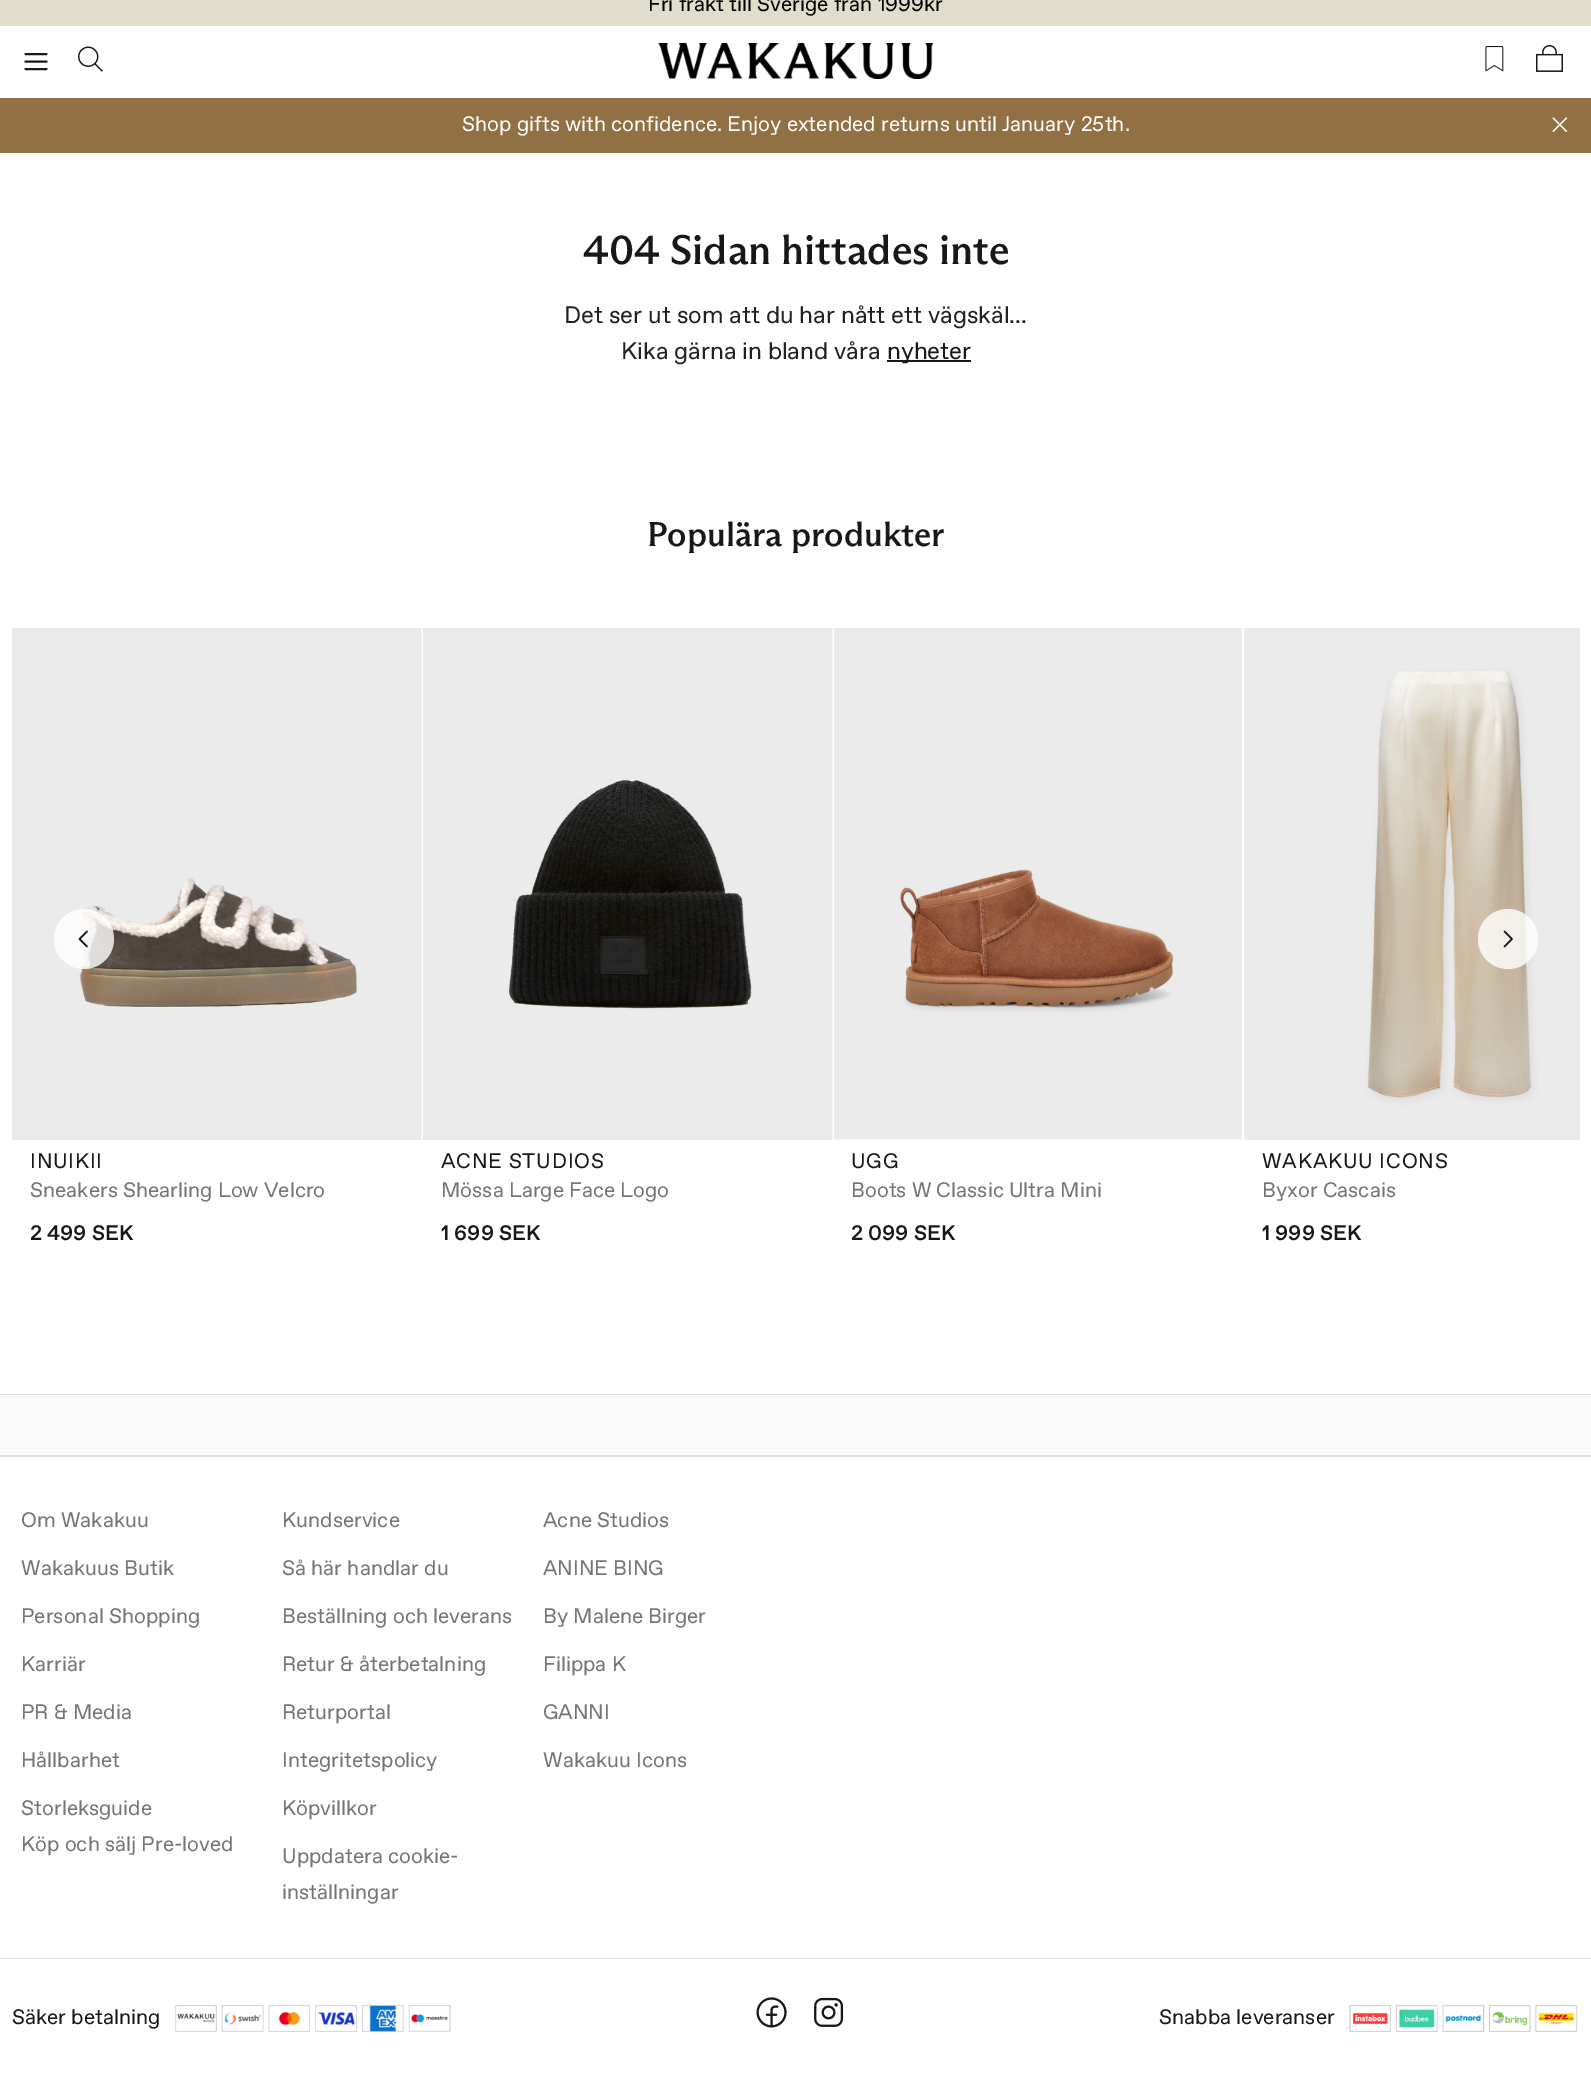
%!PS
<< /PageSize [1591 2075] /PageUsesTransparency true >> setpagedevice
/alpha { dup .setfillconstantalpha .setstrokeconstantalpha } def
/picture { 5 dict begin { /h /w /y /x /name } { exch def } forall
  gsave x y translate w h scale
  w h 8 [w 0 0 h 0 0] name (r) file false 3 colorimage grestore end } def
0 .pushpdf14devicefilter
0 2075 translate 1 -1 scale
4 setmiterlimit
1 setgray
0 0 1591 2075 rectfill
0.882 0.867 0.804 setrgbcolor
0 0 1591 26 rectfill
/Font-Light [21 0 0 -21 0 0] selectfont
0 setgray
648 11 moveto (Fri frakt till Sverige från 1999kr) show
0.094 setgray
1.9 setlinewidth
1 setlinecap
1 setlinejoin
newpath 25.5 61.5 moveto 46.5 61.5 lineto 25.5 54 moveto 46.5 54 lineto 25.5 69 moveto 46.5 69 lineto stroke
(img1.rgb) 78 46 25 26 picture
(img2.rgb) 658 43 275 36 picture
(img3.rgb) 1485 46 19 26 picture
(img4.rgb) 1536 45 27 27 picture
0.569 0.439 0.263 setrgbcolor
0 98 1591 55 rectfill
1 setgray
462 131 moveto (Shop gifts with confidence. Enjoy extended returns until January 25th.) show
(img5.rgb) 1552 117 16 15 picture
/Font-Medium [41.5 0 0 -41.5 0 0] selectfont
0.094 setgray
583 264 moveto (404 Sidan hittades inte) show
/Font-Light [24 0 0 -24 0 0] selectfont
0.129 setgray
564 323 moveto (Det ser ut som att du har nått ett vägskäl...) show
621 359 moveto (Kika gärna in bland våra) show
0.094 setgray
887 360 84 2 rectfill
887 359 moveto (nyheter) show
/Font-Medium [34.5 0 0 -34.5 0 0] selectfont
647 546 moveto (Populära produkter) show
(img6.rgb) 12 628 410 512 picture
0.8 alpha
1 setgray
newpath 84 939 30 0 360 arc closepath fill
1 alpha
0.094 setgray
1.5 setlinewidth
newpath 87 946.5 moveto 79.5 939 lineto 87 931.5 lineto stroke
(img9.rgb) 1244 628 336 512 picture
0.8 alpha
1 setgray
newpath 1508 939 30 0 360 arc closepath fill
1 alpha
0.094 setgray
newpath 1504.5 931.5 moveto 1512 939 lineto 1504.5 946.5 lineto stroke
/Font-Light [21 0 0 -21 0 0] selectfont
30 1168 moveto 0.8 0 (INUIKII) ashow
0.459 setgray
30 1197 moveto (Sneakers Shearling Low Velcro) show
/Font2-Medium [21 0 0 -21 0 0] selectfont
0.094 setgray
30 1240 moveto (2 499 SEK) show
(img7.rgb) 423 628 410 512 picture
/Font-Light [21 0 0 -21 0 0] selectfont
441 1168 moveto 0.8 0 (ACNE STUDIOS) ashow
0.459 setgray
441 1197 moveto (Mössa Large Face Logo) show
/Font2-Medium [21 0 0 -21 0 0] selectfont
0.094 setgray
441 1240 moveto (1 699 SEK) show
(img8.rgb) 834 628 408 512 picture
/Font-Light [21 0 0 -21 0 0] selectfont
851 1168 moveto 0.8 0 (UGG) ashow
0.459 setgray
851 1197 moveto (Boots W Classic Ultra Mini) show
/Font2-Medium [21 0 0 -21 0 0] selectfont
0.094 setgray
851 1240 moveto (2 099 SEK) show
/Font-Light [21 0 0 -21 0 0] selectfont
1262 1168 moveto 0.8 0 (WAKAKUU ICONS) ashow
0.459 setgray
1262 1197 moveto (Byxor Cascais) show
/Font2-Medium [21 0 0 -21 0 0] selectfont
0.094 setgray
1262 1240 moveto (1 999 SEK) show
0.878 setgray
newpath 0 1455 moveto 0 1457 lineto 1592 1457 lineto 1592 1397 lineto 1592 1455 lineto closepath fill
newpath 0 1394 moveto 0 1395 lineto 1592 1395 lineto 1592 1454 lineto 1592 1394 lineto closepath fill
0.98 setgray
0 1395 1591 60 rectfill
/Font-Light [21 0 0 -21 0 0] selectfont
0.459 setgray
21 1527 moveto (Om Wakakuu) show
21 1575 moveto (Wakakuus Butik) show
21 1623 moveto (Personal Shopping) show
21 1671 moveto (Karriär) show
21 1719 moveto (PR & Media) show
21 1767 moveto (Hållbarhet) show
21 1815 moveto (Storleksguide) show
21 1851 moveto (Köp och sälj Pre-loved) show
282 1527 moveto (Kundservice) show
282 1575 moveto (Så här handlar du) show
282 1623 moveto (Beställning och leverans) show
282 1671 moveto (Retur & återbetalning) show
282 1719 moveto (Returportal) show
282 1767 moveto (Integritetspolicy) show
282 1815 moveto (Köpvillkor) show
282 1863 moveto (Uppdatera cookie-) show
282 1899 moveto (inställningar) show
543 1527 moveto (Acne Studios) show
543 1575 moveto (ANINE BING) show
543 1623 moveto (By Malene Birger) show
543 1671 moveto (Filippa K) show
543 1719 moveto (GANNI) show
543 1767 moveto (Wakakuu Icons) show
0.878 setgray
newpath 0 1958 moveto 0 1959 lineto 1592 1959 lineto 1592 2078 lineto 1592 1958 lineto closepath fill
0.094 setgray
12 2024 moveto (Säker betalning) show
(img10.rgb) 174 2005 277 27 picture
(img11.rgb) 756 1997 31 31 picture
(img12.rgb) 814 1997 30 30 picture
1159 2024 moveto (Snabba leveranser) show
(img13.rgb) 1349 2005 229 27 picture
.poppdf14devicefilter showpage
